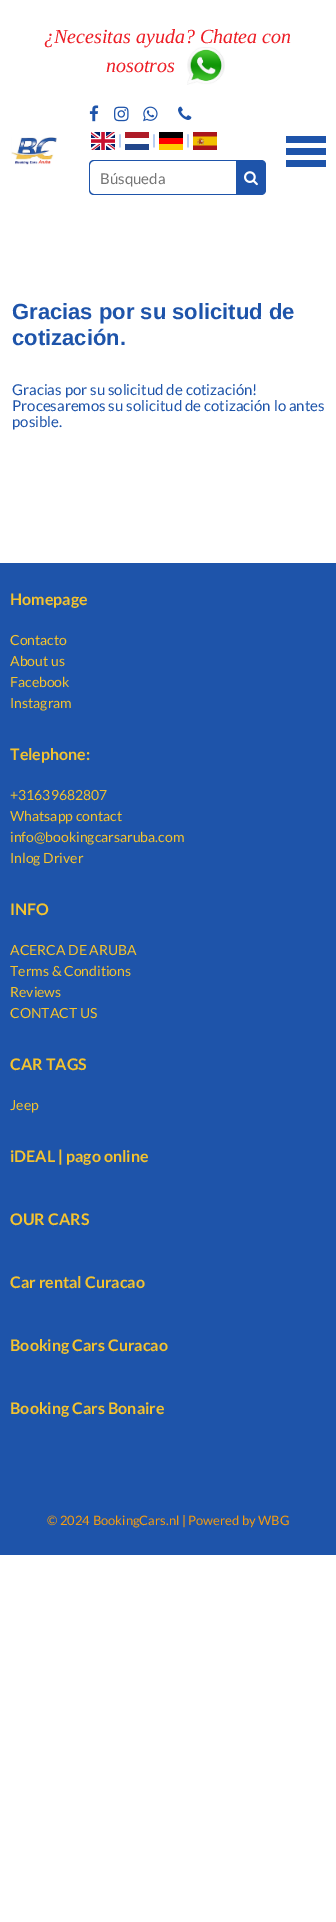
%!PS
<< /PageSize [336 1922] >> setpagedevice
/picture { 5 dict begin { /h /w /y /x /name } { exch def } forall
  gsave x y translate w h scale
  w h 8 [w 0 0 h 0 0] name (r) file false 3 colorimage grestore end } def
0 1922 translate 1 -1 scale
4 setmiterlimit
1 setgray
0 0 336 1922 rectfill
/LiberationSerif-Italic [20 0 0 -20 0 0] selectfont
0.929 0.11 0.141 setrgbcolor
44 43 moveto (¿Necesitas ayuda? Chatea con) show
106 72 moveto (nosotros) show
(img1.rgb) 187 47 38 38 picture
(img2.rgb) 11 137 46 28 picture
(img3.rgb) 89 105 10 17 picture
(img4.rgb) 114 106 15 16 picture
(img5.rgb) 143 106 15 16 picture
(img6.rgb) 178 106 14 14 picture
(img7.rgb) 91 132 24 18 picture
/Lato-Regular [14 0 0 -14 0 0] selectfont
0.478 0.643 0.906 setrgbcolor
118 145 moveto (|) show
0.682 0.11 0.157 setrgbcolor
125 132 24 6 rectfill
0.478 0.643 0.906 setrgbcolor
152 145 moveto (|) show
0.129 0.275 0.545 setrgbcolor
125 144 24 6 rectfill
0 0 0.004 setrgbcolor
159 132 24 6 rectfill
0.478 0.643 0.906 setrgbcolor
186 145 moveto (|) show
1 0 0 setrgbcolor
159 138 24 6 rectfill
1 0.8 0 setrgbcolor
159 144 24 6 rectfill
(img8.rgb) 193 132 24 18 picture
0.118 0.329 0.667 setrgbcolor
newpath 94 160 moveto 236 160 lineto 236 195 lineto 94 195 lineto 91 195 89 193 89 190 curveto 89 165 lineto 89 162 91 160 94 160 curveto closepath 94 161 moveto 236 161 lineto 236 194 lineto 94 194 lineto 92 194 90 192 90 190 curveto 90 165 lineto 90 163 92 161 94 161 curveto closepath eofill
/Lato-Regular [15 0 0 -15 0 0] selectfont
0.459 setgray
100 184 moveto (Búsqueda) show
0.118 0.329 0.667 setrgbcolor
newpath 236 160 moveto 261 160 lineto 264 160 266 162 266 165 curveto 266 190 lineto 266 193 264 195 261 195 curveto 236 195 lineto closepath fill
(img9.rgb) 244 171 14 15 picture
286 136 40 7 rectfill
286 148 40 7 rectfill
286 160 40 7 rectfill
/LiberationSans-Bold [22 0 0 -22 0 0] selectfont
12 319 moveto (Gracias por su solicitud de) show
12 345 moveto (cotización.) show
/Lato-Regular [15 0 0 -15 0 0] selectfont
12 395 moveto (Gracias por su solicitud de cotización!) show
12 411 moveto (Procesaremos su solicitud de cotización lo antes) show
12 427 moveto (posible.) show
0 563 336 992 rectfill
/Lato-Bold [16 0 0 -16 0 0] selectfont
0.957 0.765 0.184 setrgbcolor
10 605 moveto (Homepage) show
/Lato-Regular [14 0 0 -14 0 0] selectfont
10 645 moveto (Contacto) show
10 666 moveto (About us) show
10 687 moveto (Facebook) show
10 708 moveto (Instagram) show
/Lato-Bold [16 0 0 -16 0 0] selectfont
10 760 moveto (Telephone:) show
/Lato-Regular [14 0 0 -14 0 0] selectfont
10 800 moveto (+31639682807) show
10 821 moveto (Whatsapp contact) show
10 842 moveto (info@bookingcarsaruba.com) show
10 863 moveto (Inlog Driver) show
/Lato-Bold [16 0 0 -16 0 0] selectfont
10 915 moveto (INFO) show
/Lato-Regular [14 0 0 -14 0 0] selectfont
10 955 moveto (ACERCA DE ARUBA) show
10 976 moveto (Terms & Conditions) show
10 997 moveto (Reviews) show
10 1018 moveto (CONTACT US) show
/Lato-Bold [16 0 0 -16 0 0] selectfont
10 1070 moveto (CAR TAGS) show
/Lato-Regular [14 0 0 -14 0 0] selectfont
10 1110 moveto (Jeep) show
/Lato-Bold [16 0 0 -16 0 0] selectfont
10 1162 moveto (iDEAL | pago online) show
10 1225 moveto (OUR CARS) show
10 1288 moveto (Car rental Curacao) show
10 1351 moveto (Booking Cars Curacao) show
10 1414 moveto (Booking Cars Bonaire) show
/Lato-Regular [13 0 0 -13 0 0] selectfont
0.953 0.612 0.071 setrgbcolor
47 1525 moveto (© 2024 BookingCars.nl | Powered by WBG) show
showpage
